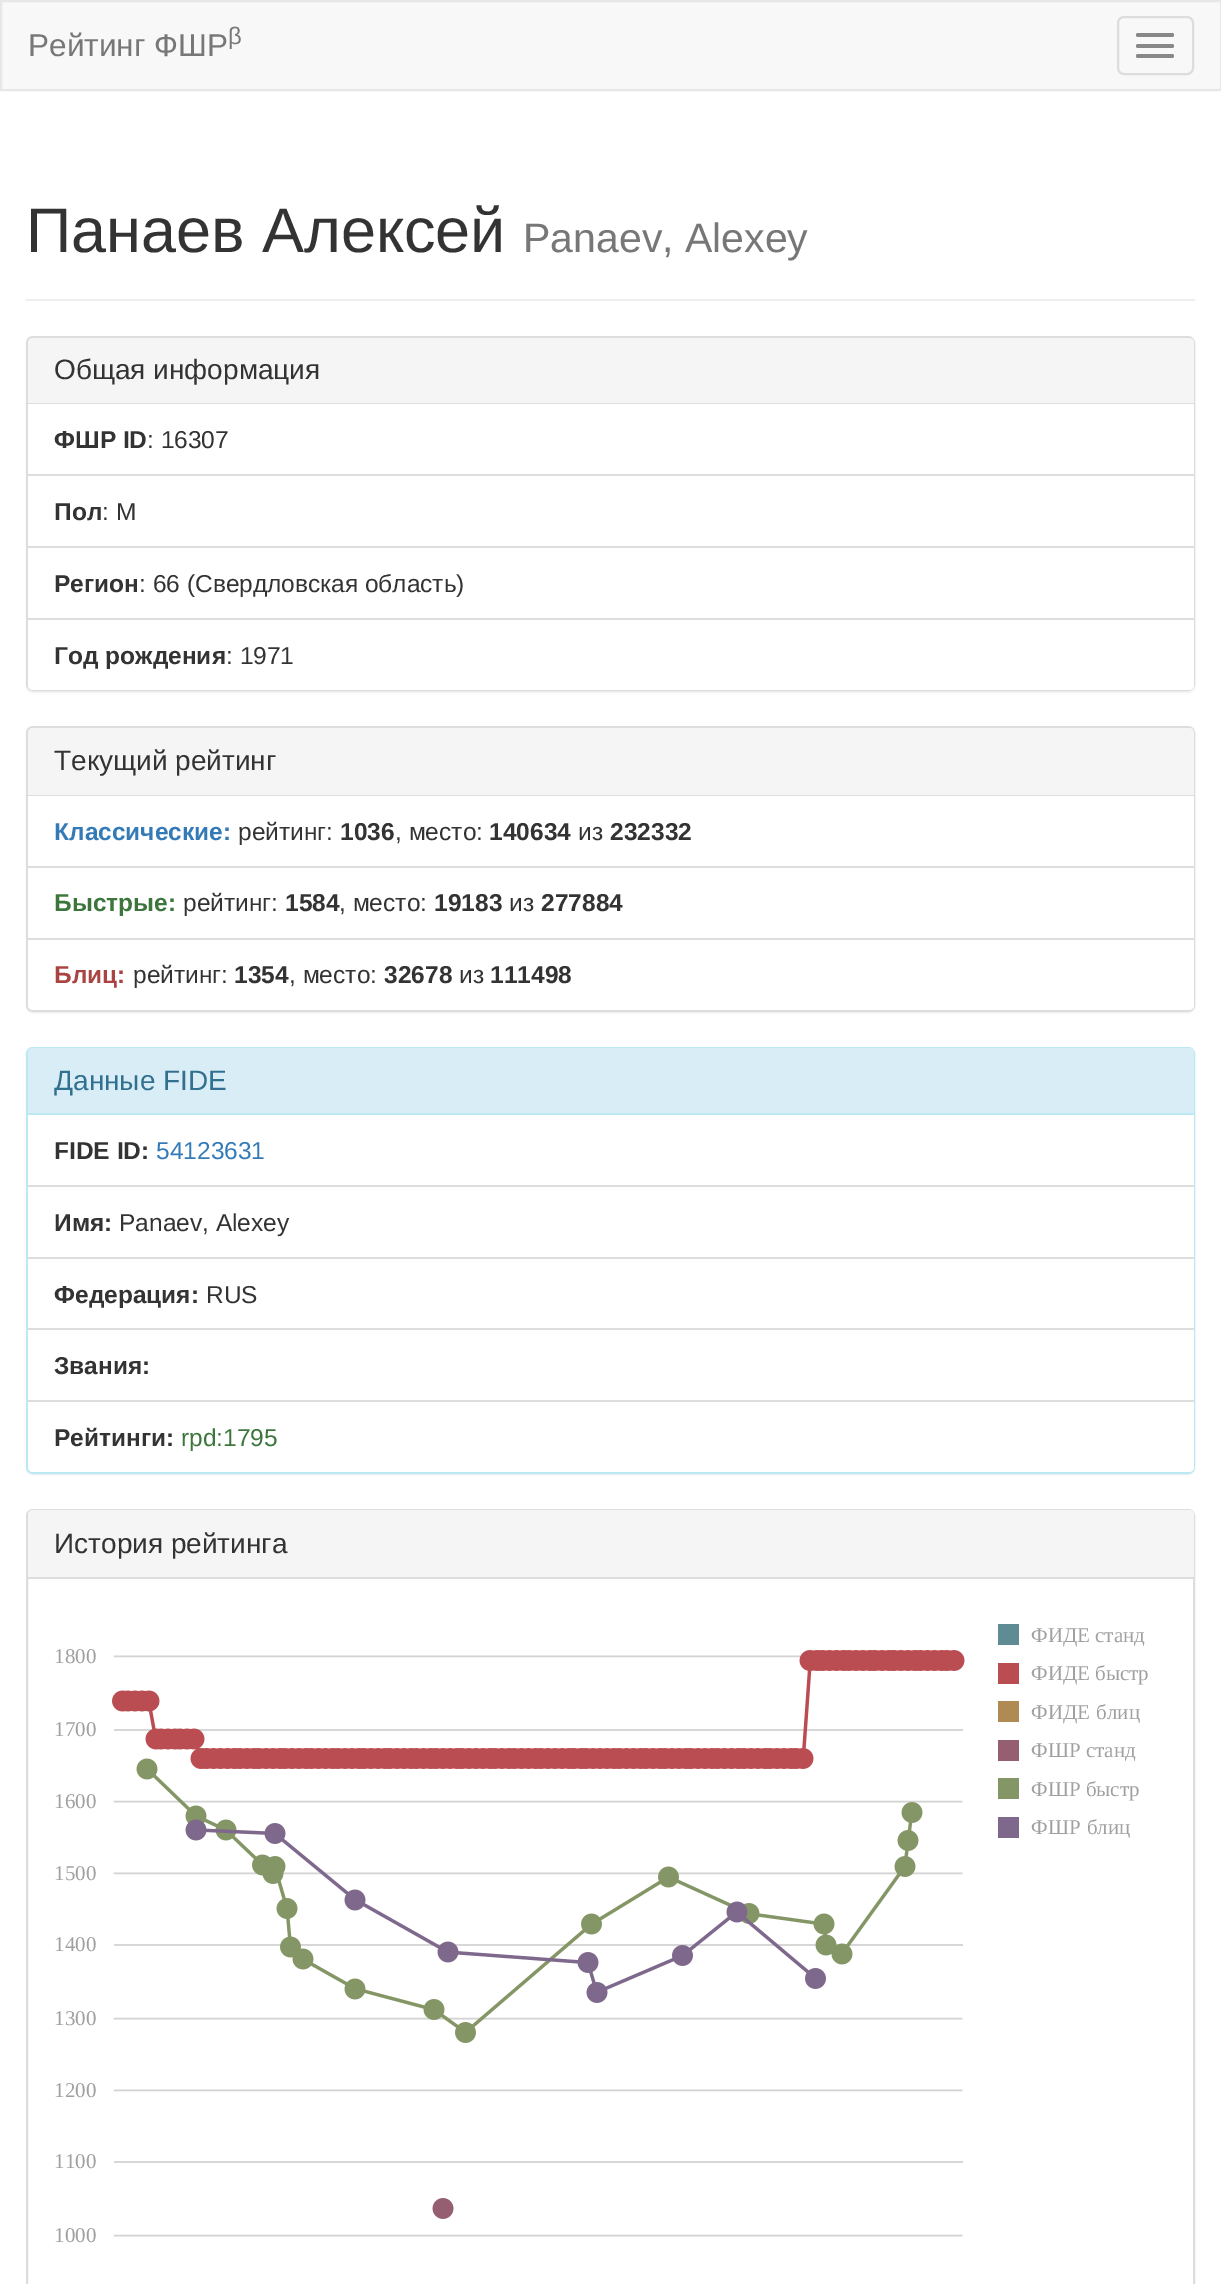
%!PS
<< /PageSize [1221 2284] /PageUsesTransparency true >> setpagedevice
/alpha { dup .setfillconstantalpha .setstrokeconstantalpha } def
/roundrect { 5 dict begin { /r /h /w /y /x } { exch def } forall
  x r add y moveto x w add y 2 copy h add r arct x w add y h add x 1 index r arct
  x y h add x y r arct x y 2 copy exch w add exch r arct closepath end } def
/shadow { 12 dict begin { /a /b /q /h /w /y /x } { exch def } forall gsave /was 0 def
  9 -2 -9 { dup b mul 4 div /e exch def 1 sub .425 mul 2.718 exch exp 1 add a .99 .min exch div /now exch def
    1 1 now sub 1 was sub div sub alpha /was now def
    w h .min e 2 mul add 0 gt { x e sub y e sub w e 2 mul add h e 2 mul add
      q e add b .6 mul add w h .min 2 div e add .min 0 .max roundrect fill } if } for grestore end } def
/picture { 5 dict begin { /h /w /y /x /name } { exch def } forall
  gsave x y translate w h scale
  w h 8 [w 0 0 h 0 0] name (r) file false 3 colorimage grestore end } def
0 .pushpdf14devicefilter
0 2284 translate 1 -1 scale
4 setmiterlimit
1 setgray
0 0 1221 2284 rectfill
0.973 setgray
newpath 1 1 moveto 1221 1 lineto 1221 90 lineto 1 90 lineto closepath gsave fill grestore
0.906 setgray
2 setlinewidth
stroke
/LiberationSans-Regular [31.5 0 0 -31.5 0 0] selectfont
0.467 setgray
28 56 moveto (Рейтинг ФШР) show
/LiberationSans-Regular [24 0 0 -24 0 0] selectfont
228 44 moveto (β) show
0.867 setgray
1118 17 75 57 6 roundrect stroke
0.533 setgray
1136 33 38 4 2 roundrect fill
1136 44 38 4 2 roundrect fill
1136 54 38 4 2 roundrect fill
0.933 setgray
26 299 1169 2 rectfill
/LiberationSans-Regular [63 0 0 -63 0 0] selectfont
0.2 setgray
26 252 moveto (Панаев Алексей) show
/LiberationSans-Regular [41 0 0 -41 0 0] selectfont
0.467 setgray
523 252 moveto (Panaev, Alexey) show
0 setgray
26 338 1169 355 7 1 0.05 shadow
0.867 setgray
27 337 1167 353 6 roundrect stroke
0.961 setgray
newpath 33 338 moveto 1189 338 lineto 1192 338 1194 340 1194 343 curveto 1194 404 lineto 28 404 lineto 28 343 lineto 28 340 30 338 33 338 curveto closepath fill
0.867 setgray
28 403 1166 1 rectfill
/LiberationSans-Regular [28 0 0 -28 0 0] selectfont
0.2 setgray
54 379 moveto (Общая информация) show
1 setgray
28 404 1166 70 rectfill
0.867 setgray
28 474 1166 2 rectfill
/LiberationSans-Bold [24.5 0 0 -24.5 0 0] selectfont
0.2 setgray
54 448 moveto (ФШР ID) show
/LiberationSans-Regular [24.5 0 0 -24.5 0 0] selectfont
147 448 moveto (: 16307) show
1 setgray
28 476 1166 70 rectfill
0.867 setgray
28 546 1166 2 rectfill
/LiberationSans-Bold [24.5 0 0 -24.5 0 0] selectfont
0.2 setgray
54 520 moveto (Пол) show
/LiberationSans-Regular [24.5 0 0 -24.5 0 0] selectfont
102 520 moveto (: М) show
1 setgray
28 548 1166 70 rectfill
/LiberationSans-Bold [24.5 0 0 -24.5 0 0] selectfont
0.2 setgray
54 592 moveto (Регион) show
/LiberationSans-Regular [24.5 0 0 -24.5 0 0] selectfont
139 592 moveto (: 66 \(Свердловская область\)) show
1 setgray
newpath 28 618 moveto 1194 618 lineto 1194 685 lineto 1194 688 1192 690 1189 690 curveto 33 690 lineto 30 690 28 688 28 685 curveto closepath fill
0.867 setgray
28 618 1166 2 rectfill
/LiberationSans-Bold [24.5 0 0 -24.5 0 0] selectfont
0.2 setgray
54 664 moveto (Год рождения) show
/LiberationSans-Regular [24.5 0 0 -24.5 0 0] selectfont
226 664 moveto (: 1971) show
0 setgray
26 728 1169 285 7 1 0.05 shadow
0.867 setgray
27 727 1167 284 6 roundrect stroke
0.961 setgray
newpath 33 728 moveto 1189 728 lineto 1192 728 1194 730 1194 733 curveto 1194 796 lineto 28 796 lineto 28 733 lineto 28 730 30 728 33 728 curveto closepath fill
0.867 setgray
28 795 1166 1 rectfill
/LiberationSans-Regular [28 0 0 -28 0 0] selectfont
0.2 setgray
54 770 moveto (Текущий рейтинг) show
1 setgray
28 796 1166 70 rectfill
0.867 setgray
28 866 1166 2 rectfill
/LiberationSans-Bold [24.5 0 0 -24.5 0 0] selectfont
0.2 0.478 0.718 setrgbcolor
54 840 moveto (Классические:) show
/LiberationSans-Regular [24.5 0 0 -24.5 0 0] selectfont
0.2 setgray
238 840 moveto (рейтинг:) show
/LiberationSans-Bold [24.5 0 0 -24.5 0 0] selectfont
340 840 moveto (1036) show
/LiberationSans-Regular [24.5 0 0 -24.5 0 0] selectfont
395 840 moveto (, место:) show
/LiberationSans-Bold [24.5 0 0 -24.5 0 0] selectfont
489 840 moveto (140634) show
/LiberationSans-Regular [24.5 0 0 -24.5 0 0] selectfont
578 840 moveto (из) show
/LiberationSans-Bold [24.5 0 0 -24.5 0 0] selectfont
610 840 moveto (232332) show
1 setgray
28 868 1166 70 rectfill
0.235 0.463 0.239 setrgbcolor
54 911 moveto (Быстрые:) show
/LiberationSans-Regular [24.5 0 0 -24.5 0 0] selectfont
0.2 setgray
183 911 moveto (рейтинг:) show
/LiberationSans-Bold [24.5 0 0 -24.5 0 0] selectfont
285 911 moveto (1584) show
/LiberationSans-Regular [24.5 0 0 -24.5 0 0] selectfont
339 911 moveto (, место:) show
/LiberationSans-Bold [24.5 0 0 -24.5 0 0] selectfont
434 911 moveto (19183) show
/LiberationSans-Regular [24.5 0 0 -24.5 0 0] selectfont
509 911 moveto (из) show
/LiberationSans-Bold [24.5 0 0 -24.5 0 0] selectfont
541 911 moveto (277884) show
1 setgray
newpath 28 938 moveto 1194 938 lineto 1194 1005 lineto 1194 1008 1192 1010 1189 1010 curveto 33 1010 lineto 30 1010 28 1008 28 1005 curveto closepath fill
0.867 setgray
28 938 1166 2 rectfill
0.663 0.267 0.259 setrgbcolor
54 983 moveto (Блиц:) show
/LiberationSans-Regular [24.5 0 0 -24.5 0 0] selectfont
0.2 setgray
133 983 moveto (рейтинг:) show
/LiberationSans-Bold [24.5 0 0 -24.5 0 0] selectfont
234 983 moveto (1354) show
/LiberationSans-Regular [24.5 0 0 -24.5 0 0] selectfont
289 983 moveto (, место:) show
/LiberationSans-Bold [24.5 0 0 -24.5 0 0] selectfont
384 983 moveto (32678) show
/LiberationSans-Regular [24.5 0 0 -24.5 0 0] selectfont
459 983 moveto (из) show
/LiberationSans-Bold [24.5 0 0 -24.5 0 0] selectfont
490 983 moveto (111498) show
0 setgray
26 1048 1169 427 7 1 0.05 shadow
0.737 0.91 0.945 setrgbcolor
27 1048 1167 425 6 roundrect stroke
0.851 0.929 0.969 setrgbcolor
newpath 33 1048 moveto 1189 1048 lineto 1192 1048 1194 1050 1194 1053 curveto 1194 1115 lineto 28 1115 lineto 28 1053 lineto 28 1050 30 1048 33 1048 curveto closepath fill
0.737 0.91 0.945 setrgbcolor
28 1113 1166 2 rectfill
/LiberationSans-Regular [28 0 0 -28 0 0] selectfont
0.192 0.439 0.561 setrgbcolor
54 1090 moveto (Данные FIDE) show
1 setgray
28 1115 1166 70 rectfill
0.867 setgray
28 1185 1166 2 rectfill
/LiberationSans-Bold [24.5 0 0 -24.5 0 0] selectfont
0.2 setgray
54 1159 moveto (FIDE ID:) show
/LiberationSans-Regular [24.5 0 0 -24.5 0 0] selectfont
0.2 0.478 0.718 setrgbcolor
156 1159 moveto (54123631) show
1 setgray
28 1187 1166 70 rectfill
/LiberationSans-Bold [24.5 0 0 -24.5 0 0] selectfont
0.2 setgray
54 1231 moveto (Имя:) show
/LiberationSans-Regular [24.5 0 0 -24.5 0 0] selectfont
119 1231 moveto (Panaev, Alexey) show
1 setgray
28 1259 1166 69 rectfill
0.867 setgray
28 1257 1166 2 rectfill
28 1328 1166 2 rectfill
/LiberationSans-Bold [24.5 0 0 -24.5 0 0] selectfont
0.2 setgray
54 1303 moveto (Федерация:) show
/LiberationSans-Regular [24.5 0 0 -24.5 0 0] selectfont
206 1303 moveto (RUS) show
1 setgray
28 1330 1166 70 rectfill
/LiberationSans-Bold [24.5 0 0 -24.5 0 0] selectfont
0.2 setgray
54 1374 moveto (Звания:) show
1 setgray
newpath 28 1400 moveto 1194 1400 lineto 1194 1467 lineto 1194 1470 1192 1472 1189 1472 curveto 33 1472 lineto 30 1472 28 1470 28 1467 curveto closepath fill
0.867 setgray
28 1400 1166 2 rectfill
0.2 setgray
54 1446 moveto (Рейтинги:) show
/LiberationSans-Regular [24.5 0 0 -24.5 0 0] selectfont
0.235 0.463 0.239 setrgbcolor
181 1446 moveto (rpd:1795) show
0.867 setgray
27 1510 1167 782 6 roundrect stroke
0.961 setgray
newpath 33 1510 moveto 1189 1510 lineto 1192 1510 1194 1512 1194 1515 curveto 1194 1579 lineto 28 1579 lineto 28 1515 lineto 28 1512 30 1510 33 1510 curveto closepath fill
0.867 setgray
28 1577 1166 2 rectfill
/LiberationSans-Regular [28 0 0 -28 0 0] selectfont
0.2 setgray
54 1553 moveto (История рейтинга) show
(img1.rgb) 112 1624 907 613 picture
/LiberationSerif-Regular [21 0 0 -21 0 0] selectfont
0.627 setgray
1031 1642 moveto (ФИДЕ станд) show
54 1663 moveto (1800) show
1031 1680 moveto (ФИДЕ быстр) show
1031 1719 moveto 1 0 32 (ФИДЕ блиц) widthshow
54 1736 moveto (1700) show
1031 1757 moveto (ФШР станд) show
54 1808 moveto (1600) show
1031 1796 moveto (ФШР быстр) show
1031 1834 moveto 1 0 32 (ФШР блиц) widthshow
54 1880 moveto (1500) show
54 1951 moveto (1400) show
54 2025 moveto (1300) show
54 2097 moveto (1200) show
54 2168 moveto (1100) show
54 2242 moveto (1000) show
.poppdf14devicefilter showpage
